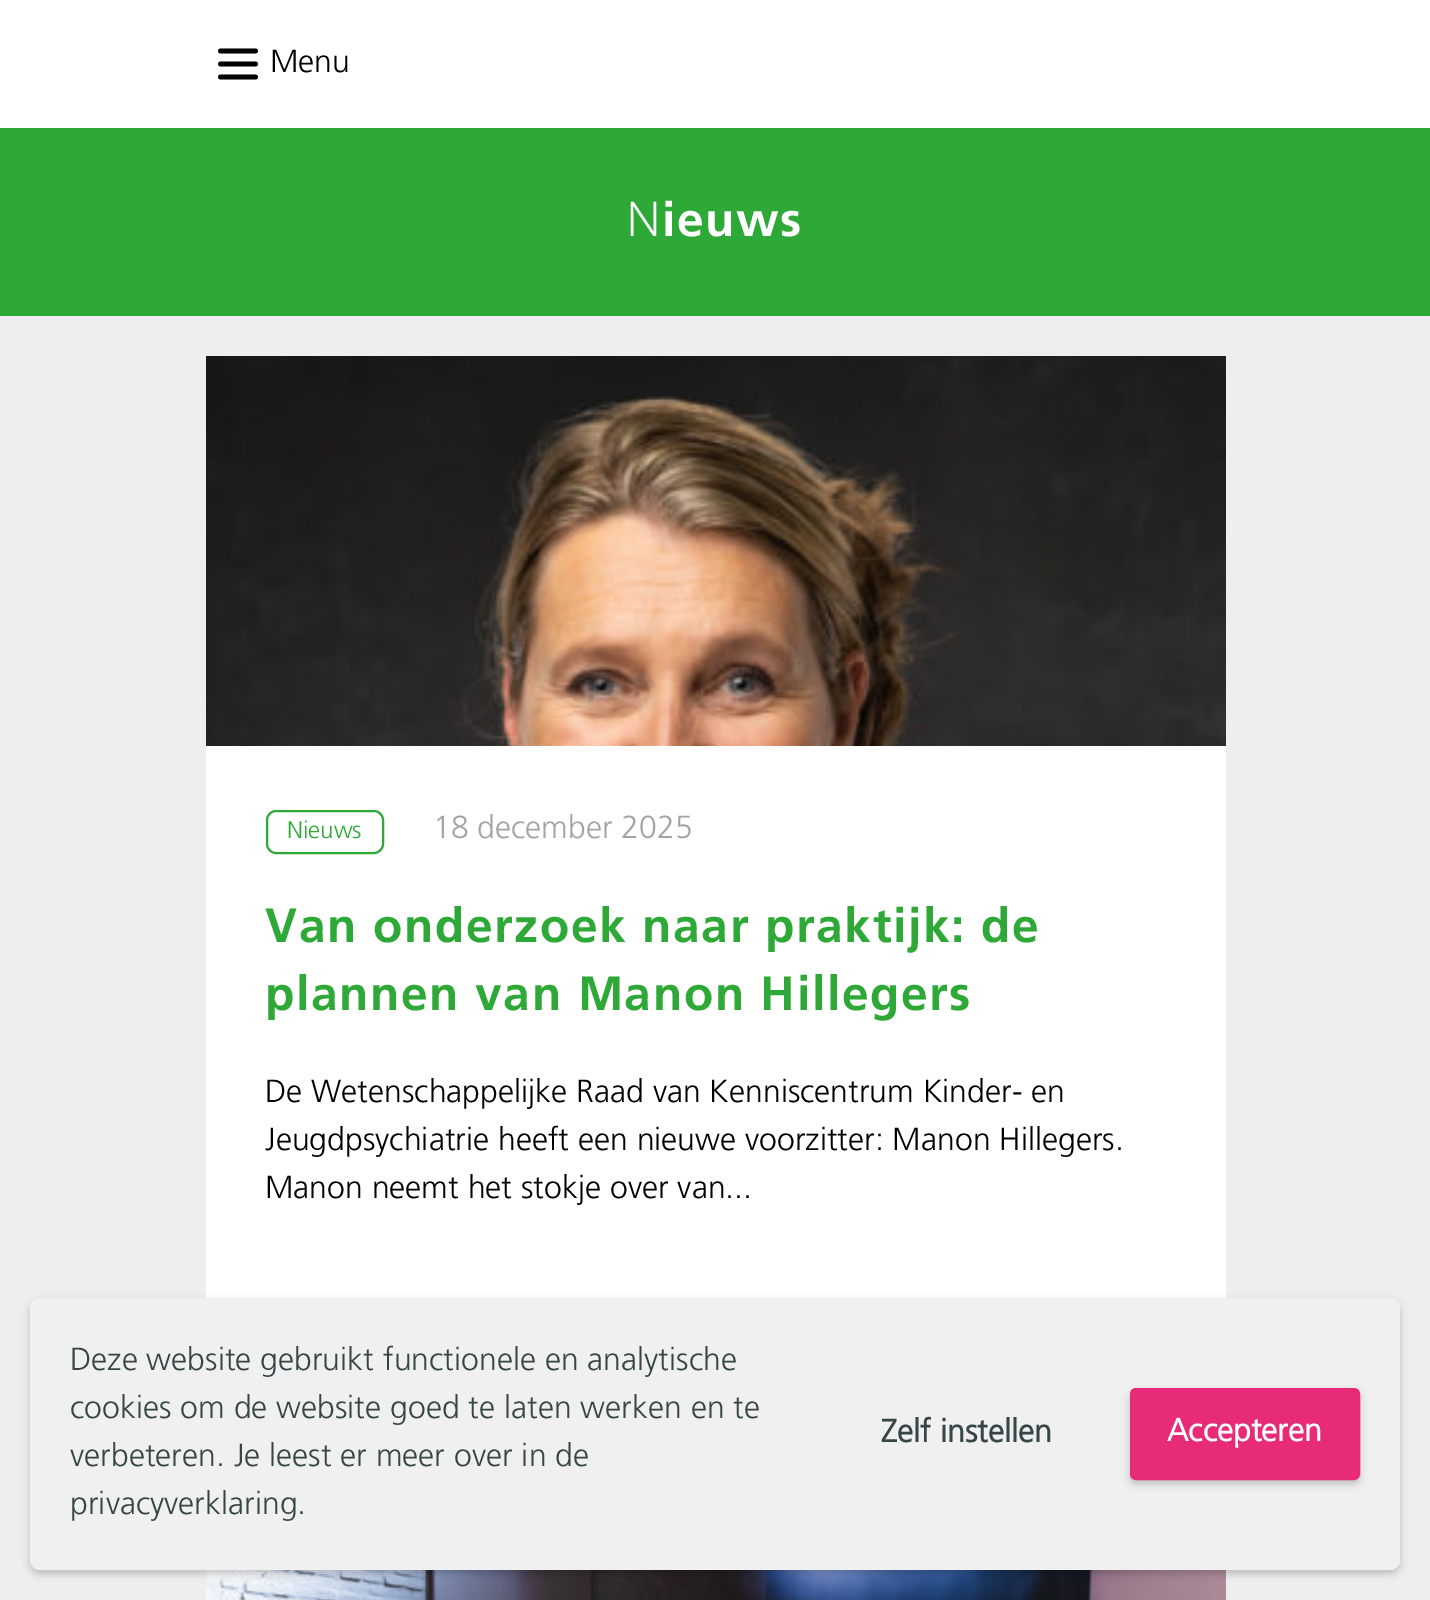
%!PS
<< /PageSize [1430 1600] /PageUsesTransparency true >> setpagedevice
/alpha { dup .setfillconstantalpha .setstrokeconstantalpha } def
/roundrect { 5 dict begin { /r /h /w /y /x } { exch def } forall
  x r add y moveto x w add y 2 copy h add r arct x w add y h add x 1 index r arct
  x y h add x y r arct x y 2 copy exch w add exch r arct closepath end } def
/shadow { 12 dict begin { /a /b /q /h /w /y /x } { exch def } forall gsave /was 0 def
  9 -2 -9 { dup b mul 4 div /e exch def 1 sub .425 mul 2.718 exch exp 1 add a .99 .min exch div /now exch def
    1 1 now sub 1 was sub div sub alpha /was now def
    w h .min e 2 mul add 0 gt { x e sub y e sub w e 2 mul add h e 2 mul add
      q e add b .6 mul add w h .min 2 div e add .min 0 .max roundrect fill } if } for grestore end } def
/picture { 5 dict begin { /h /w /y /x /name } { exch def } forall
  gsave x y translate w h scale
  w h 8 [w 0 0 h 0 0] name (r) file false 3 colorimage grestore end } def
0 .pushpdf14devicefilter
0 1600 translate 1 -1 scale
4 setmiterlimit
1 setgray
0 0 1430 1600 rectfill
0 setgray
4.8 setlinewidth
1 setlinecap
newpath 220.5 51 moveto 255.5 51 lineto 220.5 64 moveto 255.5 64 lineto 220.5 77 moveto 255.5 77 lineto stroke
/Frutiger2-Regular [32 0 0 -32 0 0] selectfont
270 72 moveto (Menu) show
0.18 0.659 0.212 setrgbcolor
0 128 1430 188 rectfill
/NotoSans-Light [48 0 0 -48 0 0] selectfont
1 setgray
626 236 moveto 1.6 0 (N) ashow
/Frutiger-Regular [48 0 0 -48 0 0] selectfont
662 236 moveto 1.6 0 (ieuws) ashow
0.933 setgray
0 316 1430 1284 rectfill
(img1.rgb) 206 356 1020 390 picture
1 setgray
206 746 1020 552 rectfill
0.18 0.659 0.212 setrgbcolor
2 setlinewidth
0 setlinecap
267 811 116 42 9 roundrect stroke
/Frutiger2-Regular [24 0 0 -24 0 0] selectfont
287 838 moveto (Nieuws) show
/Frutiger2-Regular [32 0 0 -32 0 0] selectfont
0.639 setgray
433 838 moveto (18 december 2025) show
/Frutiger-Regular [48 0 0 -48 0 0] selectfont
0.18 0.659 0.212 setrgbcolor
265 942 moveto 1.6 0 (Van onderzoek naar praktijk: de) ashow
265 1010 moveto 1.6 0 (plannen van Manon Hillegers) ashow
/Frutiger2-Regular [32 0 0 -32 0 0] selectfont
0 setgray
265 1102 moveto (De Wetenschappelijke Raad van Kenniscentrum Kinder- en) show
265 1150 moveto (Jeugdpsychiatrie heeft een nieuwe voorzitter: Manon Hillegers.) show
265 1198 moveto (Manon neemt het stokje over van...) show
(img2.rgb) 206 1570 1020 30 picture
30 1302 1370 272 10 4 0.2 shadow
0.941 setgray
30 1298 1370 272 10 roundrect fill
0.212 0.271 0.275 setrgbcolor
70 1370 moveto (Deze website gebruikt functionele en analytische) show
70 1418 moveto (cookies om de website goed te laten werken en te) show
70 1466 moveto (verbeteren. Je leest er meer over in de) show
70 1514 moveto (privacyverklaring.) show
/Frutiger-Bold [32 0 0 -32 0 0] selectfont
881 1442 moveto (Zelf instellen) show
0 setgray
1130 1392 230 92 6 4 0.2 shadow
0.906 0.169 0.471 setrgbcolor
1131 1389 228 90 5 roundrect gsave fill grestore
stroke
1 setgray
1167 1441 moveto (Accepteren) show
.poppdf14devicefilter showpage
